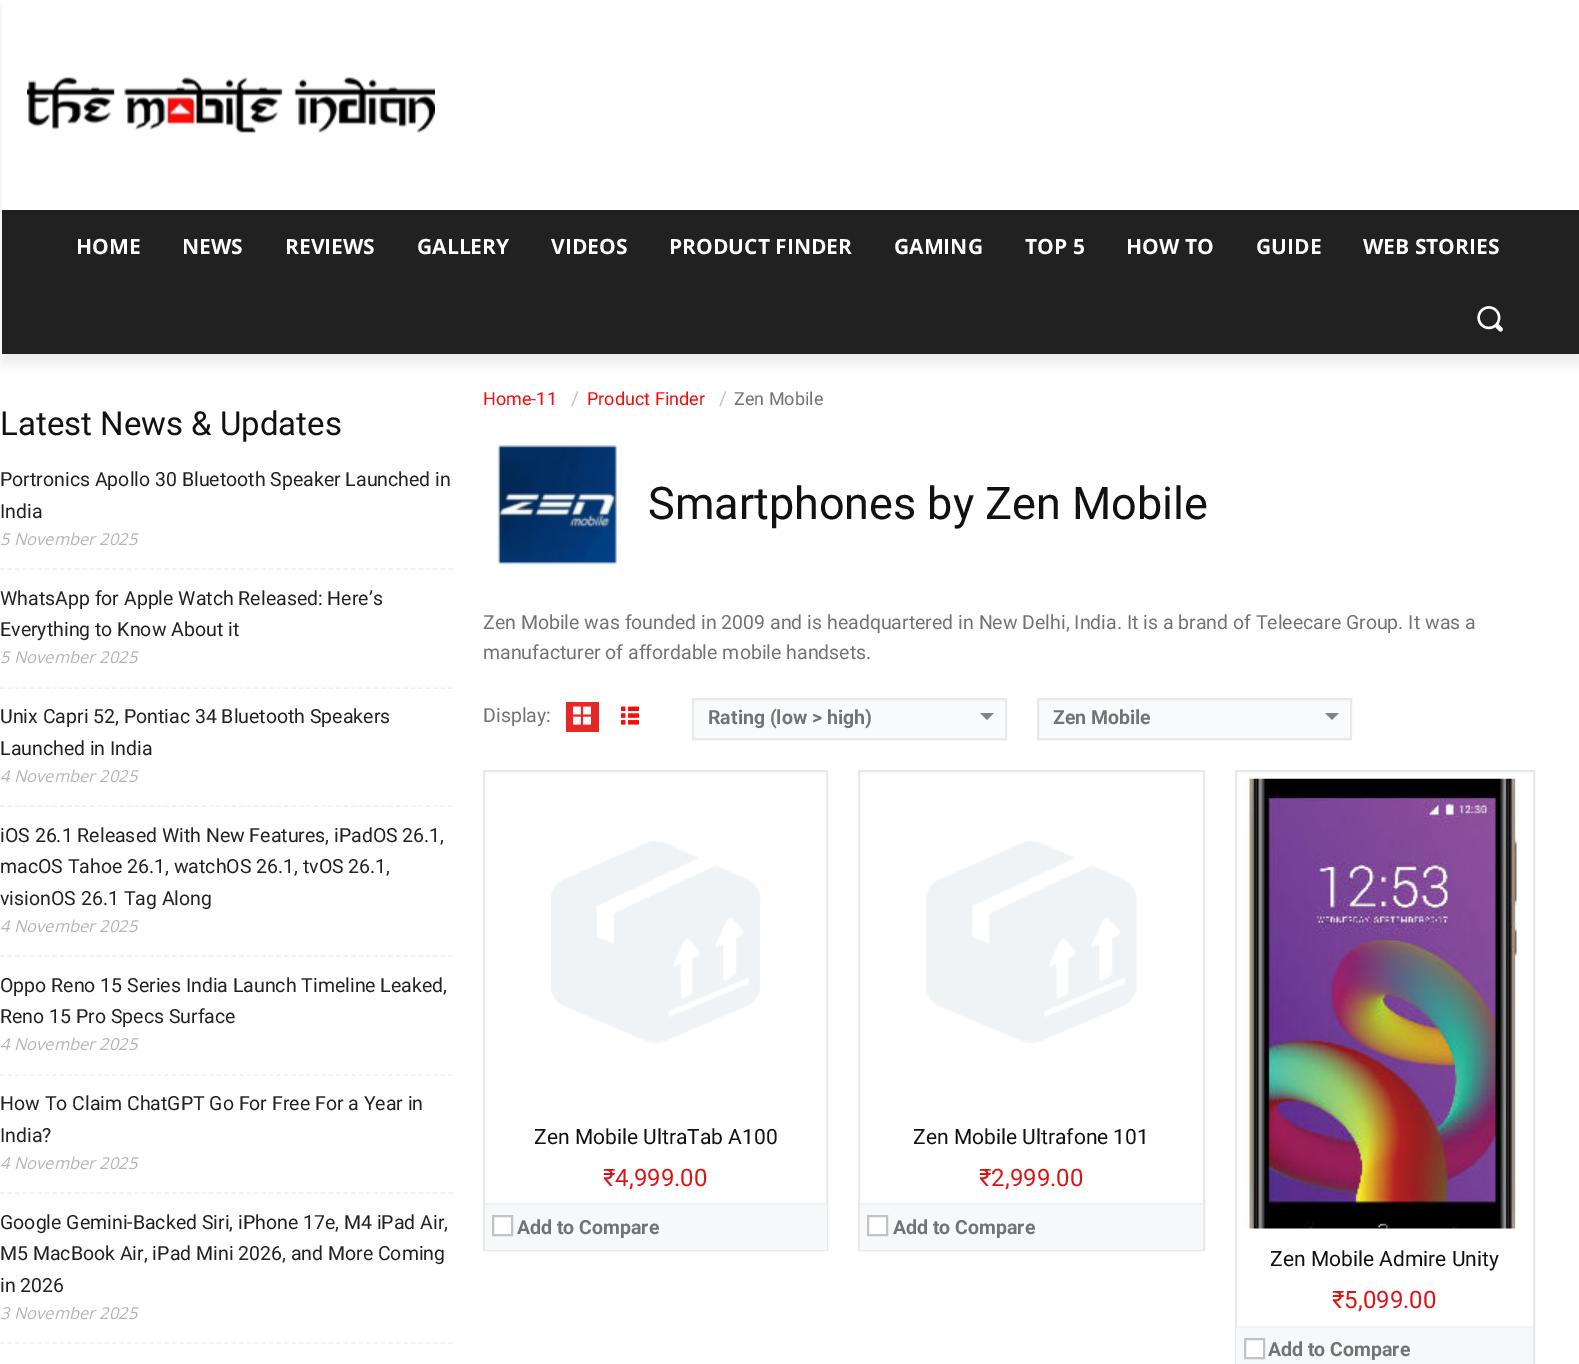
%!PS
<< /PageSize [1579 1364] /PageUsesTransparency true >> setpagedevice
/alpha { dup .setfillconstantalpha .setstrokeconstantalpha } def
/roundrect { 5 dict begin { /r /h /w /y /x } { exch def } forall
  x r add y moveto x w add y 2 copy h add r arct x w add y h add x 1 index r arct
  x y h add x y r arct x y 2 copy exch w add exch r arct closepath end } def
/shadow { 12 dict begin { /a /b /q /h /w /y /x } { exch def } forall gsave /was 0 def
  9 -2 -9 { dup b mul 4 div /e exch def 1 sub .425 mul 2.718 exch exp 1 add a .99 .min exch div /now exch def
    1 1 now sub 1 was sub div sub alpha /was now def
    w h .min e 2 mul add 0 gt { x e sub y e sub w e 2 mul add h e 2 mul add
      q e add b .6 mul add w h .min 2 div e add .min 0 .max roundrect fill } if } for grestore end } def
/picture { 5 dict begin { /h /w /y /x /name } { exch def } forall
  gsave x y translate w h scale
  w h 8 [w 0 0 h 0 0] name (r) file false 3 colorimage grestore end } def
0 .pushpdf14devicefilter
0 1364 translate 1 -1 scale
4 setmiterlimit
1 setgray
0 0 1579 1364 rectfill
(img1.rgb) 27 77 408 56 picture
0.129 setgray
2 210 1577 144 rectfill
gsave
newpath 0 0 moveto 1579 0 lineto 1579 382 lineto 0 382 lineto closepath 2 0 moveto 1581 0 lineto 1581 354 lineto 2 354 lineto closepath eoclip newpath
0 setgray
2 9 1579 354 0 6 0.08 shadow
grestore
/OpenSans-Bold [21 0 0 -21 0 0] selectfont
1 setgray
76 254 moveto (HOME) show
182 254 moveto (NEWS) show
285 254 moveto (REVIEWS) show
417 254 moveto (GALLERY) show
551 254 moveto (VIDEOS) show
669 254 moveto (PRODUCT FINDER) show
894 254 moveto (GAMING) show
1025 254 moveto (TOP 5) show
1126 254 moveto (HOW TO) show
1256 254 moveto (GUIDE) show
1363 254 moveto (WEB STORIES) show
(img2.rgb) 1477 306 26 26 picture
/Roboto-Regular [33 0 0 -33 0 0] selectfont
0.067 setgray
0 435 moveto (Latest News & Updates) show
0.945 setgray
1.5 setlinewidth
[4.5 2.97] 0 setdash
newpath 0 569 moveto 453 569 lineto stroke
/Roboto-Regular [19.5 0 0 -19.5 0 0] selectfont
0.133 setgray
0 486 moveto (Portronics Apollo 30 Bluetooth Speaker Launched in) show
0 518 moveto (India) show
/OpenSans-Italic [16.5 0 0 -16.5 0 0] selectfont
0.71 setgray
0 545 moveto (5 November 2025) show
0.945 setgray
newpath 0 688 moveto 453 688 lineto stroke
/Roboto-Regular [19.5 0 0 -19.5 0 0] selectfont
0.133 setgray
0 605 moveto (WhatsApp for Apple Watch Released: Here’s) show
0 636 moveto (Everything to Know About it) show
/OpenSans-Italic [16.5 0 0 -16.5 0 0] selectfont
0.71 setgray
0 663 moveto (5 November 2025) show
0.945 setgray
newpath 0 806 moveto 453 806 lineto stroke
/Roboto-Regular [19.5 0 0 -19.5 0 0] selectfont
0.133 setgray
0 723 moveto (Unix Capri 52, Pontiac 34 Bluetooth Speakers) show
0 755 moveto (Launched in India) show
/OpenSans-Italic [16.5 0 0 -16.5 0 0] selectfont
0.71 setgray
0 782 moveto (4 November 2025) show
0.945 setgray
newpath 0 956 moveto 453 956 lineto stroke
/Roboto-Regular [19.5 0 0 -19.5 0 0] selectfont
0.133 setgray
0 842 moveto (iOS 26.1 Released With New Features, iPadOS 26.1,) show
0 873 moveto (macOS Tahoe 26.1, watchOS 26.1, tvOS 26.1,) show
0 905 moveto (visionOS 26.1 Tag Along) show
/OpenSans-Italic [16.5 0 0 -16.5 0 0] selectfont
0.71 setgray
0 932 moveto (4 November 2025) show
0.945 setgray
newpath 0 1075 moveto 453 1075 lineto stroke
/Roboto-Regular [19.5 0 0 -19.5 0 0] selectfont
0.133 setgray
0 992 moveto (Oppo Reno 15 Series India Launch Timeline Leaked,) show
0 1023 moveto (Reno 15 Pro Specs Surface) show
/OpenSans-Italic [16.5 0 0 -16.5 0 0] selectfont
0.71 setgray
0 1050 moveto (4 November 2025) show
0.945 setgray
newpath 0 1193 moveto 453 1193 lineto stroke
/Roboto-Regular [19.5 0 0 -19.5 0 0] selectfont
0.133 setgray
0 1110 moveto (How To Claim ChatGPT Go For Free For a Year in) show
0 1142 moveto (India?) show
/OpenSans-Italic [16.5 0 0 -16.5 0 0] selectfont
0.71 setgray
0 1169 moveto (4 November 2025) show
0.945 setgray
newpath 0 1343 moveto 453 1343 lineto stroke
/Roboto-Regular [19.5 0 0 -19.5 0 0] selectfont
0.133 setgray
0 1229 moveto (Google Gemini-Backed Siri, iPhone 17e, M4 iPad Air,) show
0 1260 moveto (M5 MacBook Air, iPad Mini 2026, and More Coming) show
0 1292 moveto (in 2026) show
/OpenSans-Italic [16.5 0 0 -16.5 0 0] selectfont
0.71 setgray
0 1319 moveto (3 November 2025) show
/Roboto-Regular [18 0 0 -18 0 0] selectfont
0.961 0.051 0.043 setrgbcolor
483 405 moveto (Home-11) show
/Roboto-Regular [19.5 0 0 -19.5 0 0] selectfont
0.757 0.761 0.765 setrgbcolor
571 405 moveto (/) show
/Roboto-Regular [18 0 0 -18 0 0] selectfont
0.961 0.051 0.043 setrgbcolor
587 405 moveto (Product Finder) show
/Roboto-Regular [19.5 0 0 -19.5 0 0] selectfont
0.757 0.761 0.765 setrgbcolor
719 405 moveto (/) show
/Roboto-Regular [18 0 0 -18 0 0] selectfont
0.447 0.451 0.455 setrgbcolor
734 405 moveto (Zen Mobile) show
(img3.rgb) 497 445 120 120 picture
/Roboto-Regular [45 0 0 -45 0 0] selectfont
0.067 setgray
648 519 moveto (Smartphones by Zen Mobile) show
/Roboto-Regular [19.5 0 0 -19.5 0 0] selectfont
0.447 0.451 0.455 setrgbcolor
483 629 moveto (Zen Mobile was founded in 2009 and is headquartered in New Delhi, India. It is a brand of Teleecare Group. It was a) show
483 659 moveto (manufacturer of affordable mobile handsets.) show
483 722 moveto (Display:) show
0.906 0.149 0.149 setrgbcolor
566 702 33 30 rectfill
(img4.rgb) 573 706 18 19 picture
(img5.rgb) 621 706 18 19 picture
0.976 0.98 0.984 setrgbcolor
newpath 693 699 moveto 1006 699 lineto 1006 739 lineto 693 739 lineto closepath gsave fill grestore
0.91 0.914 0.918 setrgbcolor
2 setlinewidth
[] 0 setdash
stroke
/Roboto-Bold [19.5 0 0 -19.5 0 0] selectfont
0.447 0.451 0.455 setrgbcolor
708 724 moveto (Rating \(low > high\)) show
0.51 0.514 0.518 setrgbcolor
newpath 987 720 moveto 980 713 lineto 994 713 lineto closepath fill
0.976 0.98 0.984 setrgbcolor
newpath 1038 699 moveto 1351 699 lineto 1351 739 lineto 1038 739 lineto closepath gsave fill grestore
0.91 0.914 0.918 setrgbcolor
stroke
0.447 0.451 0.455 setrgbcolor
1053 724 moveto (Zen Mobile) show
0.51 0.514 0.518 setrgbcolor
newpath 1332 720 moveto 1325 713 lineto 1339 713 lineto closepath fill
0.91 0.914 0.918 setrgbcolor
484 771 343 479 rectstroke
(img6.rgb) 551 841 210 203 picture
/Roboto-Regular [21 0 0 -21 0 0] selectfont
0.067 setgray
534 1144 moveto (Zen Mobile UltraTab A100) show
/Roboto-Regular [24 0 0 -24 0 0] selectfont
0.843 0.09 0.09 setrgbcolor
603 1186 moveto (₹4,999.00) show
0.969 0.973 0.976 setrgbcolor
485 1205 342 45 rectfill
0.945 0.949 0.953 setrgbcolor
485 1203 342 2 rectfill
1 setgray
newpath 493 1216 moveto 512 1216 lineto 512 1235 lineto 493 1235 lineto closepath gsave fill grestore
0.757 0.761 0.765 setrgbcolor
stroke
/Roboto-Bold [19.5 0 0 -19.5 0 0] selectfont
0.447 0.451 0.455 setrgbcolor
517 1234 moveto (Add to Compare) show
0.91 0.914 0.918 setrgbcolor
859 771 345 479 rectstroke
(img7.rgb) 926 841 211 203 picture
/Roboto-Regular [21 0 0 -21 0 0] selectfont
0.067 setgray
913 1144 moveto (Zen Mobile Ultrafone 101) show
/Roboto-Regular [24 0 0 -24 0 0] selectfont
0.843 0.09 0.09 setrgbcolor
979 1186 moveto (₹2,999.00) show
0.969 0.973 0.976 setrgbcolor
860 1205 343 45 rectfill
0.945 0.949 0.953 setrgbcolor
860 1203 343 2 rectfill
1 setgray
newpath 868 1216 moveto 887 1216 lineto 887 1235 lineto 868 1235 lineto closepath gsave fill grestore
0.757 0.761 0.765 setrgbcolor
stroke
/Roboto-Bold [19.5 0 0 -19.5 0 0] selectfont
0.447 0.451 0.455 setrgbcolor
893 1234 moveto (Add to Compare) show
0.91 0.914 0.918 setrgbcolor
1236 771 298 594 rectstroke
(img8.rgb) 1244 778 276 451 picture
/Roboto-Regular [21 0 0 -21 0 0] selectfont
0.067 setgray
1270 1266 moveto (Zen Mobile Admire Unity) show
/Roboto-Regular [24 0 0 -24 0 0] selectfont
0.843 0.09 0.09 setrgbcolor
1332 1308 moveto (₹5,099.00) show
0.969 0.973 0.976 setrgbcolor
1236 1328 297 36 rectfill
0.945 0.949 0.953 setrgbcolor
1236 1326 297 2 rectfill
1 setgray
newpath 1245 1339 moveto 1264 1339 lineto 1264 1358 lineto 1245 1358 lineto closepath gsave fill grestore
0.757 0.761 0.765 setrgbcolor
stroke
/Roboto-Bold [19.5 0 0 -19.5 0 0] selectfont
0.447 0.451 0.455 setrgbcolor
1268 1356 moveto (Add to Compare) show
.poppdf14devicefilter showpage
